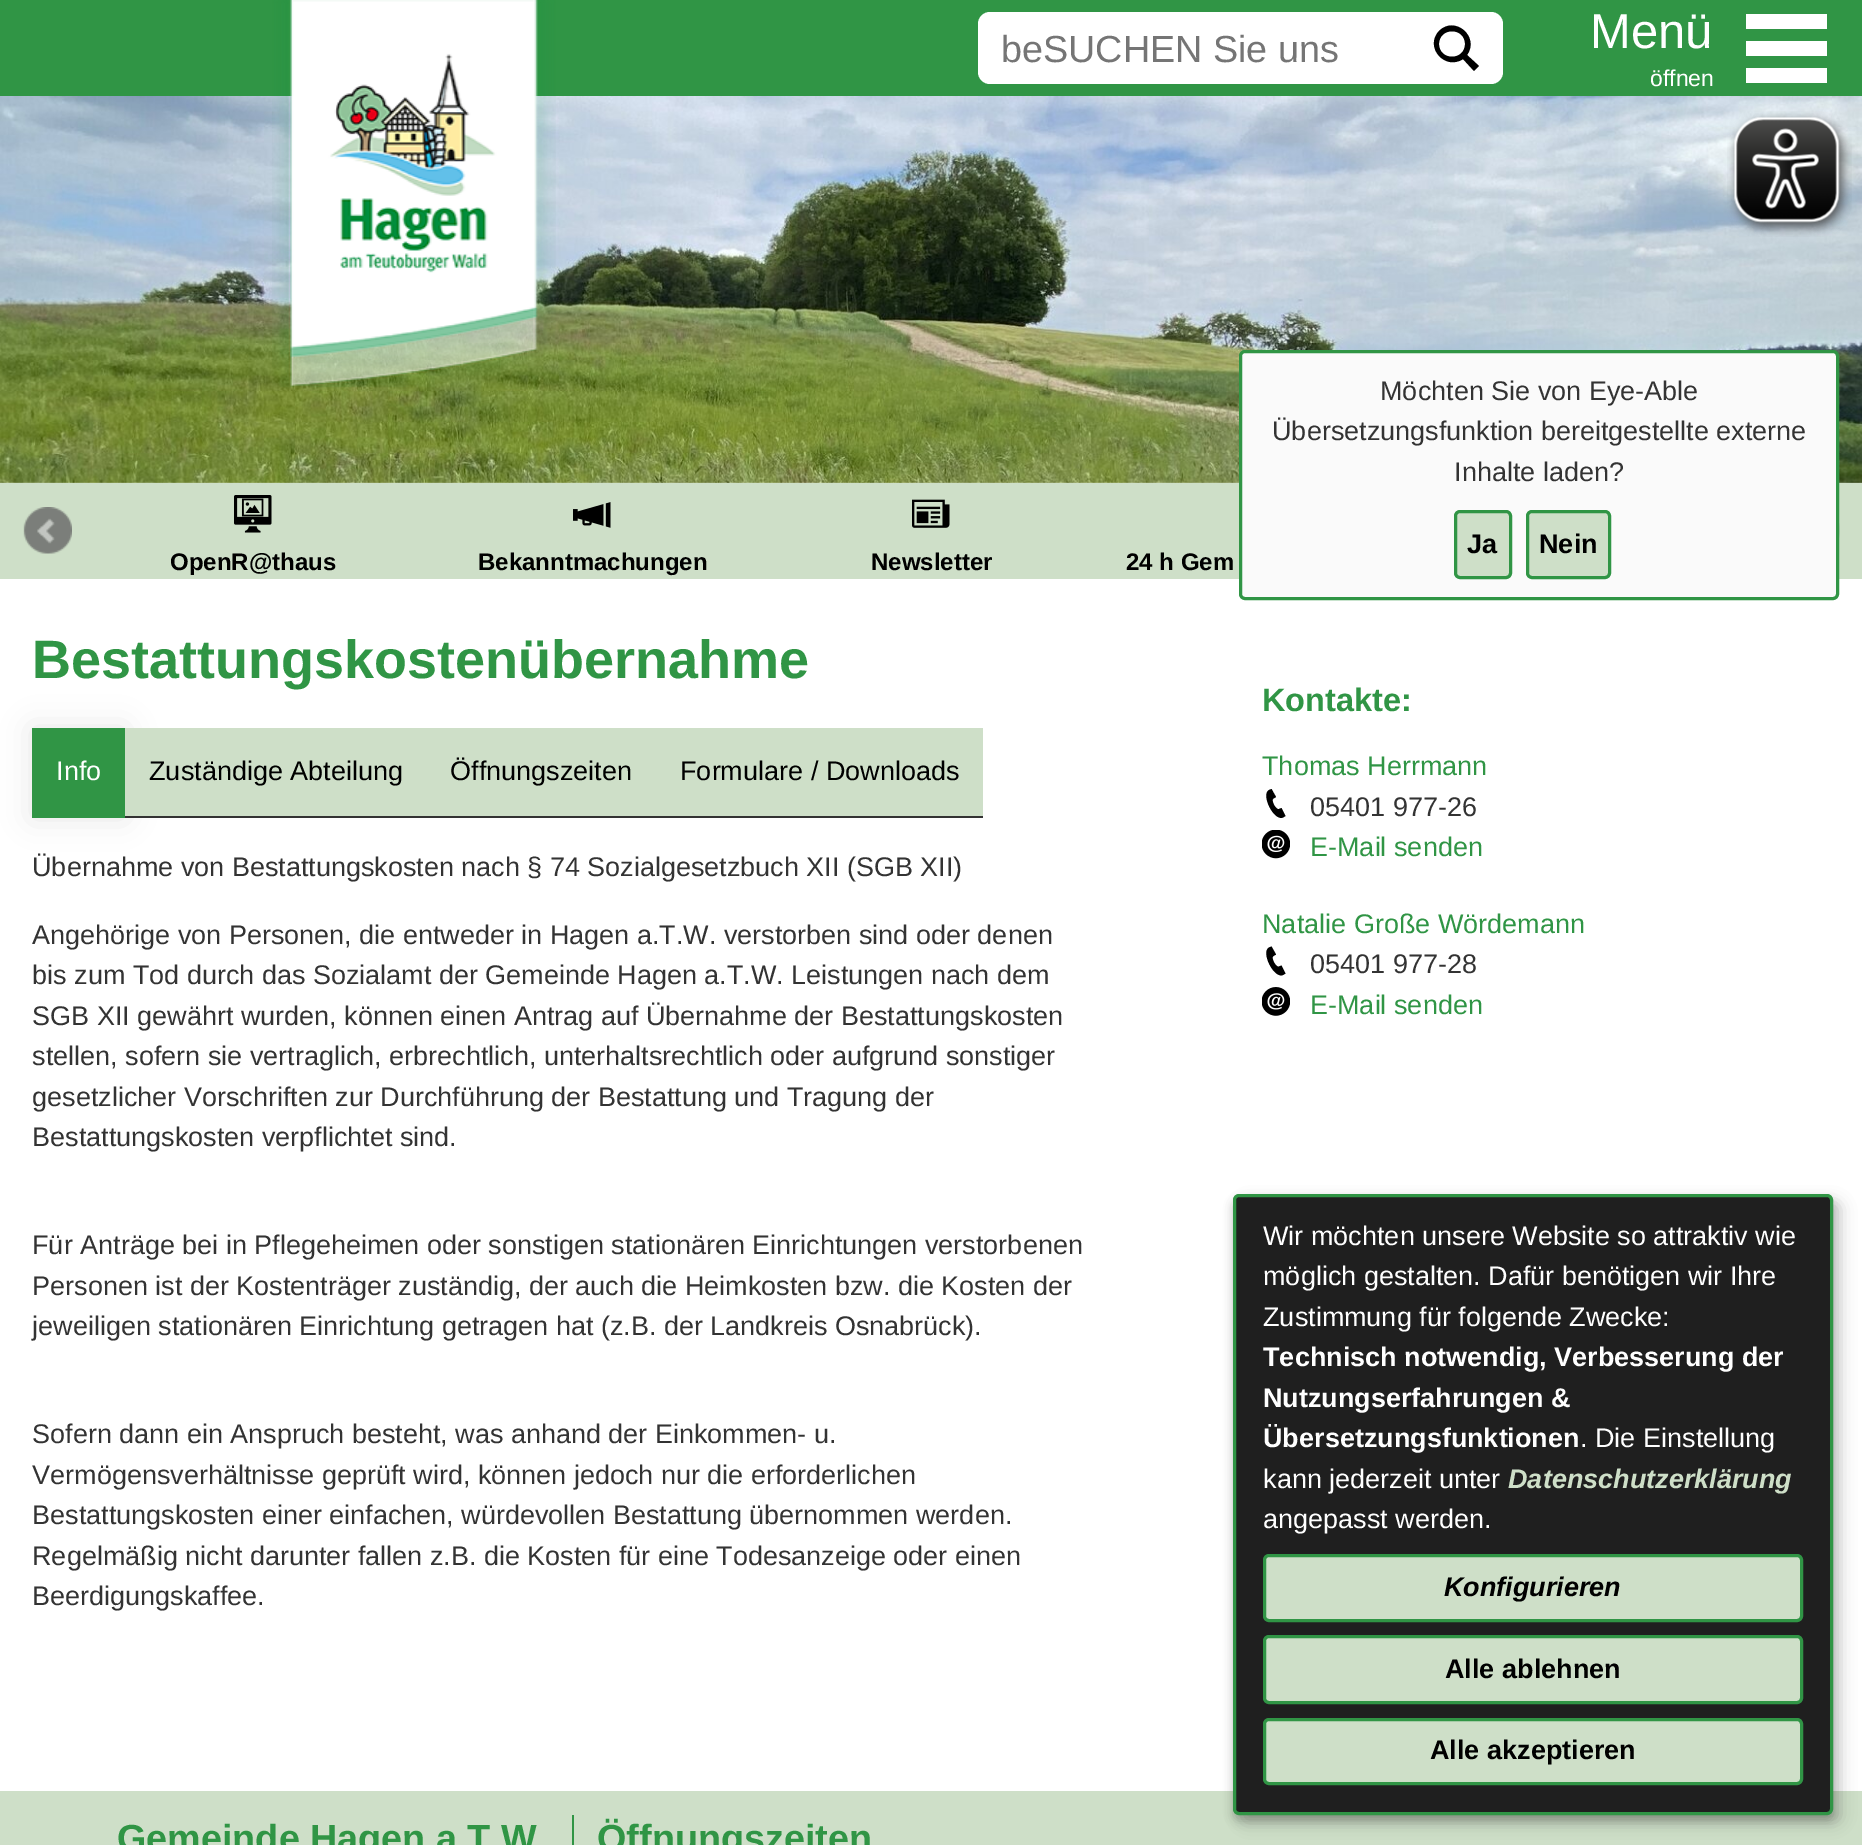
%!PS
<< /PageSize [1862 1845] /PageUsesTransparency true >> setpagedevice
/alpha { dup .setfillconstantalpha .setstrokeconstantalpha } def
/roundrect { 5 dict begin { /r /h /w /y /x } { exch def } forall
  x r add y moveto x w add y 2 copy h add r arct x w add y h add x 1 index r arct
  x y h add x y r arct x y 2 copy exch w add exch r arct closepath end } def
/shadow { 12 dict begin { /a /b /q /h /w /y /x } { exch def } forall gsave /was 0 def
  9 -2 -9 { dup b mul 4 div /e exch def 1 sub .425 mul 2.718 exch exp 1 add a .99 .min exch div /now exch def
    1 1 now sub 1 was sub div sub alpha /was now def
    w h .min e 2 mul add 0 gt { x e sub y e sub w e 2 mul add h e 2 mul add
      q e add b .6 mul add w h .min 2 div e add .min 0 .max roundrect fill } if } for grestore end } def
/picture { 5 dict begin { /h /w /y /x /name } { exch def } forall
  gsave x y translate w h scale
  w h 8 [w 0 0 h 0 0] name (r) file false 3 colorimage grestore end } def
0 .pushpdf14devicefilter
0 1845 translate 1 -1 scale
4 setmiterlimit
1 setgray
0 0 1862 1845 rectfill
0.188 0.584 0.271 setrgbcolor
0 0 1862 96 rectfill
(img2.rgb) 0 96 1862 387 picture
(img1.rgb) 272 0 284 387 picture
1 setgray
978 12 525 72 12 roundrect fill
/LiberationSans-Regular [37.75 0 0 -37.75 0 0] selectfont
0.459 setgray
1001 62 moveto (beSUCHEN Sie uns) show
0 setgray
newpath 1479 66 moveto 1467 55 lineto 1480 37 1455 15 1439 31 curveto 1424 47 1445 71 1463 59 curveto 1474 71 lineto closepath 1439 44 moveto 1439 27 1465 27 1465 44 curveto 1465 61 1439 61 1439 44 curveto closepath fill
0.808 0.875 0.784 setrgbcolor
0 483 1862 96 rectfill
(img3.rgb) 23 507 49 47 picture
(img4.rgb) 1839 523 1 15 picture
(img5.rgb) 234 495 38 38 picture
/LiberationSans-Bold [24 0 0 -24 0 0] selectfont
0 setgray
170 570 moveto (OpenR@thaus) show
(img6.rgb) 573 502 38 26 picture
478 570 moveto (Bekanntmachungen) show
(img7.rgb) 912 499 38 29 picture
871 570 moveto (Newsletter) show
1126 570 moveto (24 h Gem) show
/LiberationSans-Bold [54 0 0 -54 0 0] selectfont
0.188 0.584 0.271 setrgbcolor
32 678 moveto (Bestattungskostenübernahme) show
0 setgray
32 728 93 90 0 15 0.1 shadow
0.188 0.584 0.271 setrgbcolor
32 728 93 90 rectfill
/LiberationSans-Regular [27 0 0 -27 0 0] selectfont
1 setgray
56 780 moveto (Info) show
0.808 0.875 0.784 setrgbcolor
125 728 858 88 rectfill
0.2 setgray
125 816 858 2 rectfill
0 setgray
149 780 moveto (Zuständige Abteilung) show
450 780 moveto (Öffnungszeiten) show
680 780 moveto (Formulare / Downloads) show
0.2 setgray
32 876 moveto (Übernahme von Bestattungskosten nach § 74 Sozialgesetzbuch XII \(SGB XII\)) show
32 944 moveto (Angehörige von Personen, die entweder in Hagen a.T.W. verstorben sind oder denen) show
32 984 moveto (bis zum Tod durch das Sozialamt der Gemeinde Hagen a.T.W. Leistungen nach dem) show
32 1025 moveto (SGB XII gewährt wurden, können einen Antrag auf Übernahme der Bestattungskosten) show
32 1065 moveto (stellen, sofern sie vertraglich, erbrechtlich, unterhaltsrechtlich oder aufgrund sonstiger) show
32 1106 moveto (gesetzlicher Vorschriften zur Durchführung der Bestattung und Tragung der) show
32 1146 moveto (Bestattungskosten verpflichtet sind.) show
32 1254 moveto (Für Anträge bei in Pflegeheimen oder sonstigen stationären Einrichtungen verstorbenen) show
32 1295 moveto (Personen ist der Kostenträger zuständig, der auch die Heimkosten bzw. die Kosten der) show
32 1335 moveto (jeweiligen stationären Einrichtung getragen hat \(z.B. der Landkreis Osnabrück\).) show
32 1443 moveto (Sofern dann ein Anspruch besteht, was anhand der Einkommen- u.) show
32 1484 moveto (Vermögensverhältnisse geprüft wird, können jedoch nur die erforderlichen) show
32 1524 moveto (Bestattungskosten einer einfachen, würdevollen Bestattung übernommen werden.) show
32 1565 moveto (Regelmäßig nicht darunter fallen z.B. die Kosten für eine Todesanzeige oder einen) show
32 1605 moveto (Beerdigungskaffee.) show
/LiberationSans-Bold [32.5 0 0 -32.5 0 0] selectfont
0.188 0.584 0.271 setrgbcolor
1262 711 moveto (Kontakte:) show
/LiberationSans-Regular [27 0 0 -27 0 0] selectfont
1262 775 moveto (Thomas Herrmann) show
0 setgray
newpath 1285.5 816 moveto 1281.5 808 lineto 1279 809 lineto 1276 810.5 1270.5 800 1273.5 798.5 curveto 1276 797 lineto 1271.5 789 lineto 1269 790 lineto 1260.5 794.5 1274 821.5 1283 817.5 curveto closepath fill
0.2 setgray
1310 816 moveto (05401 977-26) show
(img8.rgb) 1262 830 28 29 picture
0.188 0.584 0.271 setrgbcolor
1310 856 moveto (E-Mail senden) show
1262 933 moveto (Natalie Große Wördemann) show
0 setgray
newpath 1285.5 973.5 moveto 1281.5 965.5 lineto 1279 966.5 lineto 1276 968 1270.5 957.5 1273.5 956 curveto 1276 954.5 lineto 1271.5 946.5 lineto 1269 947.5 lineto 1260.5 952 1274 979 1283 975 curveto closepath fill
0.2 setgray
1310 973 moveto (05401 977-28) show
(img9.rgb) 1262 987 28 29 picture
0.188 0.584 0.271 setrgbcolor
1310 1014 moveto (E-Mail senden) show
0.808 0.875 0.784 setrgbcolor
0 1791 1862 54 rectfill
0.188 0.584 0.271 setrgbcolor
572 1815 2 30 rectfill
/LiberationSans-Bold [37.75 0 0 -37.75 0 0] selectfont
117 1851 moveto (Gemeinde Hagen a.T.W) show
597 1851 moveto (Öffnungszeiten) show
/LiberationSans-Regular [49 0 0 -49 0 0] selectfont
1 setgray
1590 48 moveto (Menü) show
/LiberationSans-Regular [23 0 0 -23 0 0] selectfont
1650 86 moveto (öffnen) show
1746 41 81 15 rectfill
1746 14 81 15 rectfill
1746 68 81 15 rectfill
(img10.rgb) 1727 111 125 126 picture
0.98 setgray
1240.5 351.5 597 247 4.5 roundrect gsave fill grestore
0.188 0.584 0.271 setrgbcolor
3 setlinewidth
stroke
/LiberationSans-Regular [27 0 0 -27 0 0] selectfont
0.2 setgray
1380 400 moveto (Möchten Sie von Eye-Able) show
1272 440 moveto (Übersetzungsfunktion bereitgestellte externe) show
1454 481 moveto (Inhalte laden?) show
0.808 0.875 0.784 setrgbcolor
1455.5 511.5 55 66 4.5 roundrect gsave fill grestore
0.188 0.584 0.271 setrgbcolor
stroke
/LiberationSans-Bold [27 0 0 -27 0 0] selectfont
0 setgray
1467 553 moveto (Ja) show
0.808 0.875 0.784 setrgbcolor
1527.5 511.5 82 66 4.5 roundrect gsave fill grestore
0.188 0.584 0.271 setrgbcolor
stroke
0 setgray
1539 553 moveto (Nein) show
1241 1202 600 621 6 7.5 0.19 shadow
1233 1200 600 621 6 4.5 0.2 shadow
0.122 setgray
1234.5 1195.5 597 618 4.5 roundrect gsave fill grestore
0.188 0.584 0.271 setrgbcolor
stroke
/LiberationSans-Regular [27 0 0 -27 0 0] selectfont
1 setgray
1263 1245 moveto (Wir möchten unsere Website so attraktiv wie) show
1263 1285 moveto (möglich gestalten. Dafür benötigen wir Ihre) show
1263 1326 moveto (Zustimmung für folgende Zwecke:) show
/LiberationSans-Bold [27 0 0 -27 0 0] selectfont
1263 1366 moveto (Technisch notwendig, Verbesserung der) show
1263 1407 moveto (Nutzungserfahrungen &) show
1263 1447 moveto (Übersetzungsfunktionen) show
/LiberationSans-Regular [27 0 0 -27 0 0] selectfont
1580 1447 moveto (. Die Einstellung) show
1263 1488 moveto (kann jederzeit unter) show
/LiberationSans-BoldItalic [27 0 0 -27 0 0] selectfont
0.808 0.875 0.784 setrgbcolor
1508 1488 moveto (Datenschutzerklärung) show
/LiberationSans-Regular [27 0 0 -27 0 0] selectfont
1 setgray
1263 1528 moveto (angepasst werden.) show
0.808 0.875 0.784 setrgbcolor
1264.5 1555.5 537 65 4.5 roundrect gsave fill grestore
0.188 0.584 0.271 setrgbcolor
stroke
/LiberationSans-BoldItalic [27 0 0 -27 0 0] selectfont
0 setgray
1444 1596 moveto (Konfigurieren) show
0.808 0.875 0.784 setrgbcolor
1264.5 1636.5 537 66 4.5 roundrect gsave fill grestore
0.188 0.584 0.271 setrgbcolor
stroke
/LiberationSans-Bold [27 0 0 -27 0 0] selectfont
0 setgray
1445 1678 moveto (Alle ablehnen) show
0.808 0.875 0.784 setrgbcolor
1264.5 1719.5 537 64 4.5 roundrect gsave fill grestore
0.188 0.584 0.271 setrgbcolor
stroke
0 setgray
1430 1759 moveto (Alle akzeptieren) show
.poppdf14devicefilter showpage
